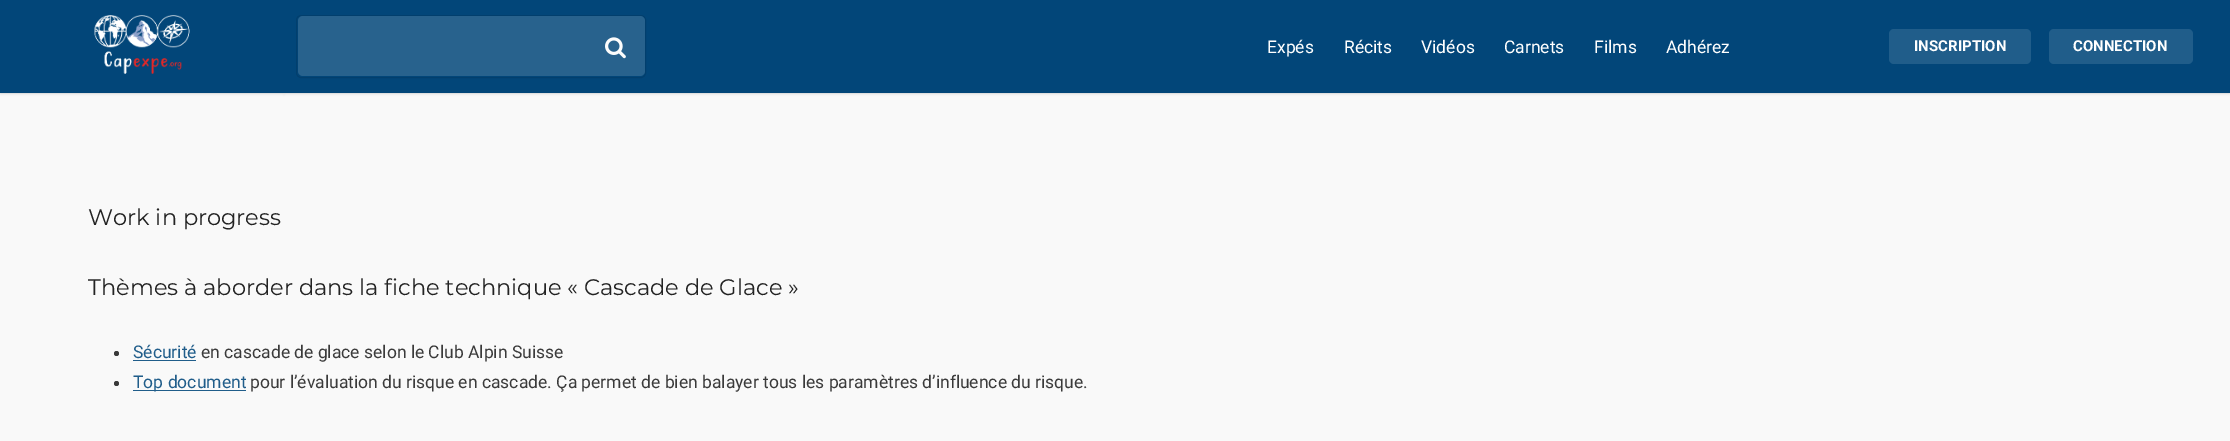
%!PS
<< /PageSize [2230 441] /PageUsesTransparency true >> setpagedevice
/alpha { dup .setfillconstantalpha .setstrokeconstantalpha } def
/roundrect { 5 dict begin { /r /h /w /y /x } { exch def } forall
  x r add y moveto x w add y 2 copy h add r arct x w add y h add x 1 index r arct
  x y h add x y r arct x y 2 copy exch w add exch r arct closepath end } def
/shadow { 12 dict begin { /a /b /q /h /w /y /x } { exch def } forall gsave /was 0 def
  9 -2 -9 { dup b mul 4 div /e exch def 1 sub .425 mul 2.718 exch exp 1 add a .99 .min exch div /now exch def
    1 1 now sub 1 was sub div sub alpha /was now def
    w h .min e 2 mul add 0 gt { x e sub y e sub w e 2 mul add h e 2 mul add
      q e add b .6 mul add w h .min 2 div e add .min 0 .max roundrect fill } if } for grestore end } def
/picture { 5 dict begin { /h /w /y /x /name } { exch def } forall
  gsave x y translate w h scale
  w h 8 [w 0 0 h 0 0] name (r) file false 3 colorimage grestore end } def
0 .pushpdf14devicefilter
0 441 translate 1 -1 scale
4 setmiterlimit
0.976 setgray
0 0 2230 441 rectfill
0.929 setgray
284 93 1946 1 rectfill
0 setgray
284 3 1946 92 0 1 0.05 shadow
0.05 alpha
newpath 0 92 moveto 0 94 lineto 284 94 lineto 284 1 lineto 284 92 lineto closepath fill
1 alpha
0 3 284 92 0 1 0.05 shadow
0.008 0.275 0.475 setrgbcolor
0 0 2230 93 rectfill
(img1.rgb) 94 15 96 59 picture
0.008 0.247 0.427 setrgbcolor
296.5 15.5 349 62 4.5 roundrect stroke
0.157 0.384 0.553 setrgbcolor
298 16 347 60 5 roundrect fill
(img2.rgb) 605 37 21 22 picture
/Roboto-Regular [17.5 0 0 -17.5 0 0] selectfont
1 setgray
1267 53 moveto (Expés) show
1344 53 moveto (Récits) show
1421 53 moveto (Vidéos) show
1504 53 moveto (Carnets) show
1594 53 moveto (Films) show
1666 53 moveto (Adhérez) show
0.125 0.365 0.541 setrgbcolor
1889 29 142 35 5 roundrect fill
/Roboto-Bold [15 0 0 -15 0 0] selectfont
1 setgray
1914 51 moveto (INSCRIPTION) show
0.125 0.365 0.541 setrgbcolor
2049 29 144 35 5 roundrect fill
1 setgray
2073 51 moveto (CONNECTION) show
/Montserrat-Regular [22.5 0 0 -22.5 0 0] selectfont
0.137 setgray
88 225 moveto (Work in progress) show
88 295 moveto (Thèmes à aborder dans la fiche technique « Cascade de Glace ») show
0.227 setgray
newpath 116.5 353.5 2.5 0 360 arc closepath fill
/Roboto-Regular [17.5 0 0 -17.5 0 0] selectfont
0.125 0.365 0.541 setrgbcolor
133 358 moveto (Sécurité) show
133 360 63 1 rectfill
0.227 setgray
201 358 moveto (en cascade de glace selon le Club Alpin Suisse) show
newpath 116.5 383.5 2.5 0 360 arc closepath fill
0.125 0.365 0.541 setrgbcolor
133 390 113 1 rectfill
133 388 moveto (Top document) show
0.227 setgray
250 388 moveto (pour l’évaluation du risque en cascade. Ça permet de bien balayer tous les paramètres d’influence du risque.) show
.poppdf14devicefilter showpage
